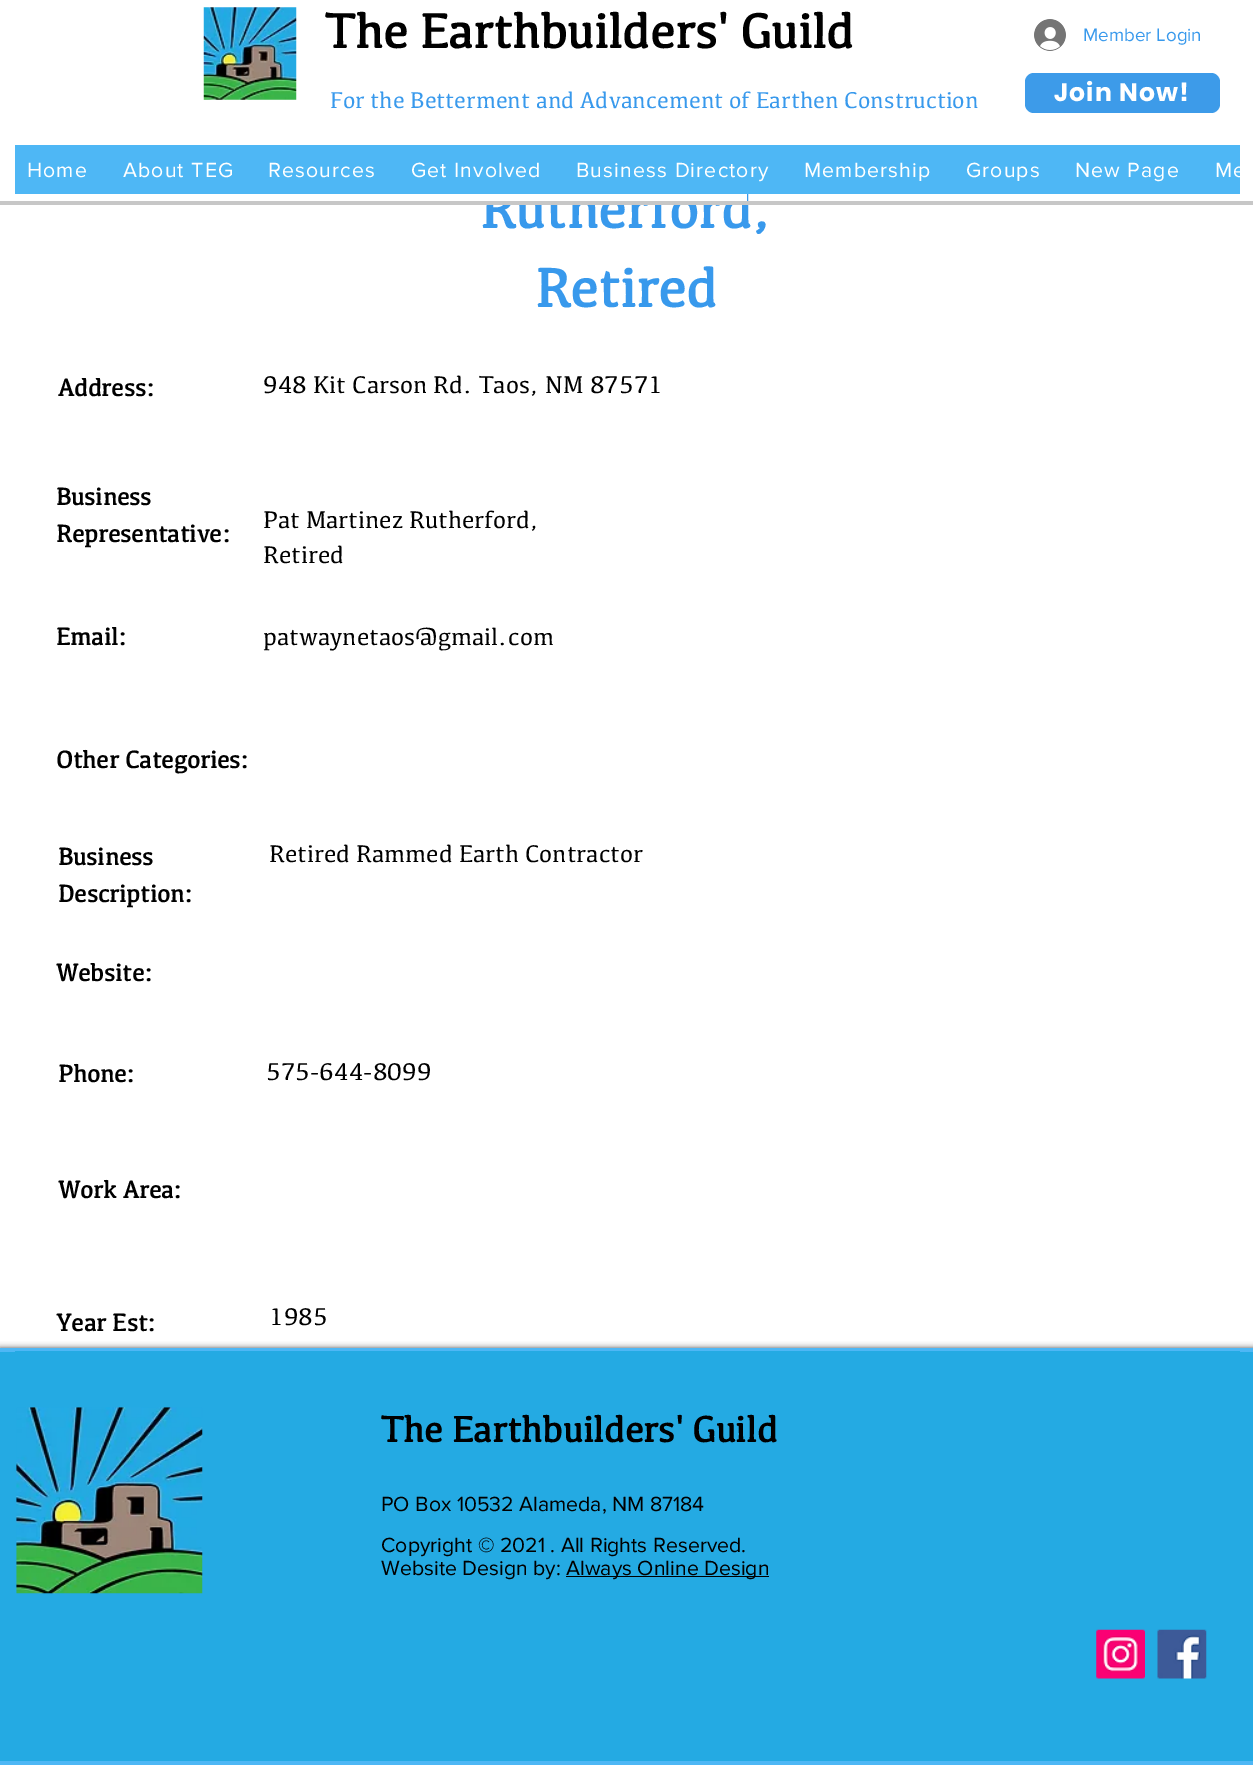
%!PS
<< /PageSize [1253 1765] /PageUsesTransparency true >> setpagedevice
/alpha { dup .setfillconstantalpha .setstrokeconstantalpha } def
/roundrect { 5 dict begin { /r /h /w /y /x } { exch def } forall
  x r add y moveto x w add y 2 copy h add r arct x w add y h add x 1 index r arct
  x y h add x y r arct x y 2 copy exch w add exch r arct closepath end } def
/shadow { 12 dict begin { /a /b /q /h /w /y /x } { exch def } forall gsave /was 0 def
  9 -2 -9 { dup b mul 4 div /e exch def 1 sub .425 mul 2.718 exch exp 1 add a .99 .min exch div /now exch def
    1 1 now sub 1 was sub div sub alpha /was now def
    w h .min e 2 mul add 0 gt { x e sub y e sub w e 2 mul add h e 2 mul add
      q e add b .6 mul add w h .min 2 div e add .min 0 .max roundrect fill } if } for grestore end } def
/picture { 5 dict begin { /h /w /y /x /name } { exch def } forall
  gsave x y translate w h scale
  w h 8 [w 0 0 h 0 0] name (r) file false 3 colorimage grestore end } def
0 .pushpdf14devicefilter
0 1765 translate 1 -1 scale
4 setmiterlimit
1 setgray
0 0 1253 1765 rectfill
(img1.rgb) 203 7 94 93 picture
/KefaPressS-Bold [50 0 0 -50 0 0] selectfont
0 setgray
325 48 moveto (The Earthbuilders' Guild) show
(img2.rgb) 1034 19 32 32 picture
/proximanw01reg-Regular [18.75 0 0 -18.75 0 0] selectfont
0.22 0.6 0.925 setrgbcolor
1083 41 moveto (Member Login) show
/KefaPressS-Regular [23.75 0 0 -23.75 0 0] selectfont
330 108 moveto (For the Betterment and Advancement of Earthen Construction) show
0.239 0.608 0.914 setrgbcolor
1025 73 195 40 9 roundrect fill
/Poppins-Bold [25 0 0 -25 0 0] selectfont
1 setgray
1054 101 moveto 1.25 0 (Join Now!) ashow
/KefaPressS-Bold [56.25 0 0 -56.25 0 0] selectfont
0.22 0.6 0.925 setrgbcolor
480 228 moveto (Rutherford,) show
1 setgray
483 188 264 13 rectfill
0.306 0.718 0.961 setrgbcolor
15 145 1225 49 rectfill
/proximanw01reg-Regular [21.25 0 0 -21.25 0 0] selectfont
1 setgray
27 177 moveto 1.1 0 (Home) ashow
123 177 moveto 1.1 0 (About TEG) ashow
268 177 moveto 1.1 0 (Resources) ashow
411 177 moveto 1.1 0 (Get Involved) ashow
576 177 moveto 1.1 0 (Business Directory) ashow
804 177 moveto 1.1 0 (Membership) ashow
966 177 moveto 1.1 0 (Groups) ashow
1075 177 moveto 1.1 0 (New Page) ashow
gsave
15 145 1225 49 rectclip
1215 177 moveto 1.1 0 (Me) ashow
grestore
0.78 setgray
0 201 1253 4 rectfill
/KefaPressS-Bold [56.25 0 0 -56.25 0 0] selectfont
0.22 0.6 0.925 setrgbcolor
535 307 moveto (Retired) show
/KefaPressS-Bold [25 0 0 -25 0 0] selectfont
0 setgray
58 396 moveto (Address:) show
/KefaPressS-Regular [25 0 0 -25 0 0] selectfont
263 393 moveto (948 Kit Carson Rd. Taos, NM 87571) show
/KefaPressS-Bold [25 0 0 -25 0 0] selectfont
56 505 moveto (Business) show
56 542 moveto (Representative:) show
/KefaPressS-Regular [25 0 0 -25 0 0] selectfont
263 528 moveto (Pat Martinez Rutherford,) show
263 563 moveto (Retired) show
/KefaPressS-Bold [25 0 0 -25 0 0] selectfont
56 645 moveto (Email:) show
/KefaPressS-Regular [25 0 0 -25 0 0] selectfont
263 645 moveto (patwaynetaos@gmail.com) show
/KefaPressS-Bold [25 0 0 -25 0 0] selectfont
56 768 moveto (Other Categories:) show
58 865 moveto (Business) show
58 902 moveto (Description:) show
/KefaPressS-Regular [25 0 0 -25 0 0] selectfont
269 862 moveto (Retired Rammed Earth Contractor) show
/KefaPressS-Bold [25 0 0 -25 0 0] selectfont
56 981 moveto (Website:) show
58 1082 moveto (Phone:) show
/KefaPressS-Regular [25 0 0 -25 0 0] selectfont
266 1080 moveto (575-644-8099) show
/KefaPressS-Bold [25 0 0 -25 0 0] selectfont
58 1198 moveto (Work Area:) show
56 1331 moveto (Year Est:) show
/KefaPressS-Regular [25 0 0 -25 0 0] selectfont
269 1325 moveto (1985) show
0 1348 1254 417 0 3 0.7 shadow
0.141 0.667 0.89 setrgbcolor
0 1352 1253 409 rectfill
0.306 0.718 0.961 setrgbcolor
0 1348 1253 4 rectfill
0 1761 1253 4 rectfill
0.141 0.667 0.89 setrgbcolor
15 1351 1225 1 rectfill
(img3.rgb) 16 1407 187 187 picture
/KefaPressS-Bold [37.5 0 0 -37.5 0 0] selectfont
0 setgray
381 1442 moveto (The Earthbuilders' Guild) show
/proximanw01reg-Regular [21.25 0 0 -21.25 0 0] selectfont
381 1511 moveto (PO Box 10532 Alameda, NM 87184) show
381 1552 moveto (Copyright © 2021 . All Rights Reserved.) show
381 1575 moveto (Website Design by:) show
566 1576 203 1 rectfill
566 1575 moveto (Always Online Design) show
(img4.rgb) 1096 1629 49 50 picture
(img5.rgb) 1157 1629 50 50 picture
.poppdf14devicefilter showpage
